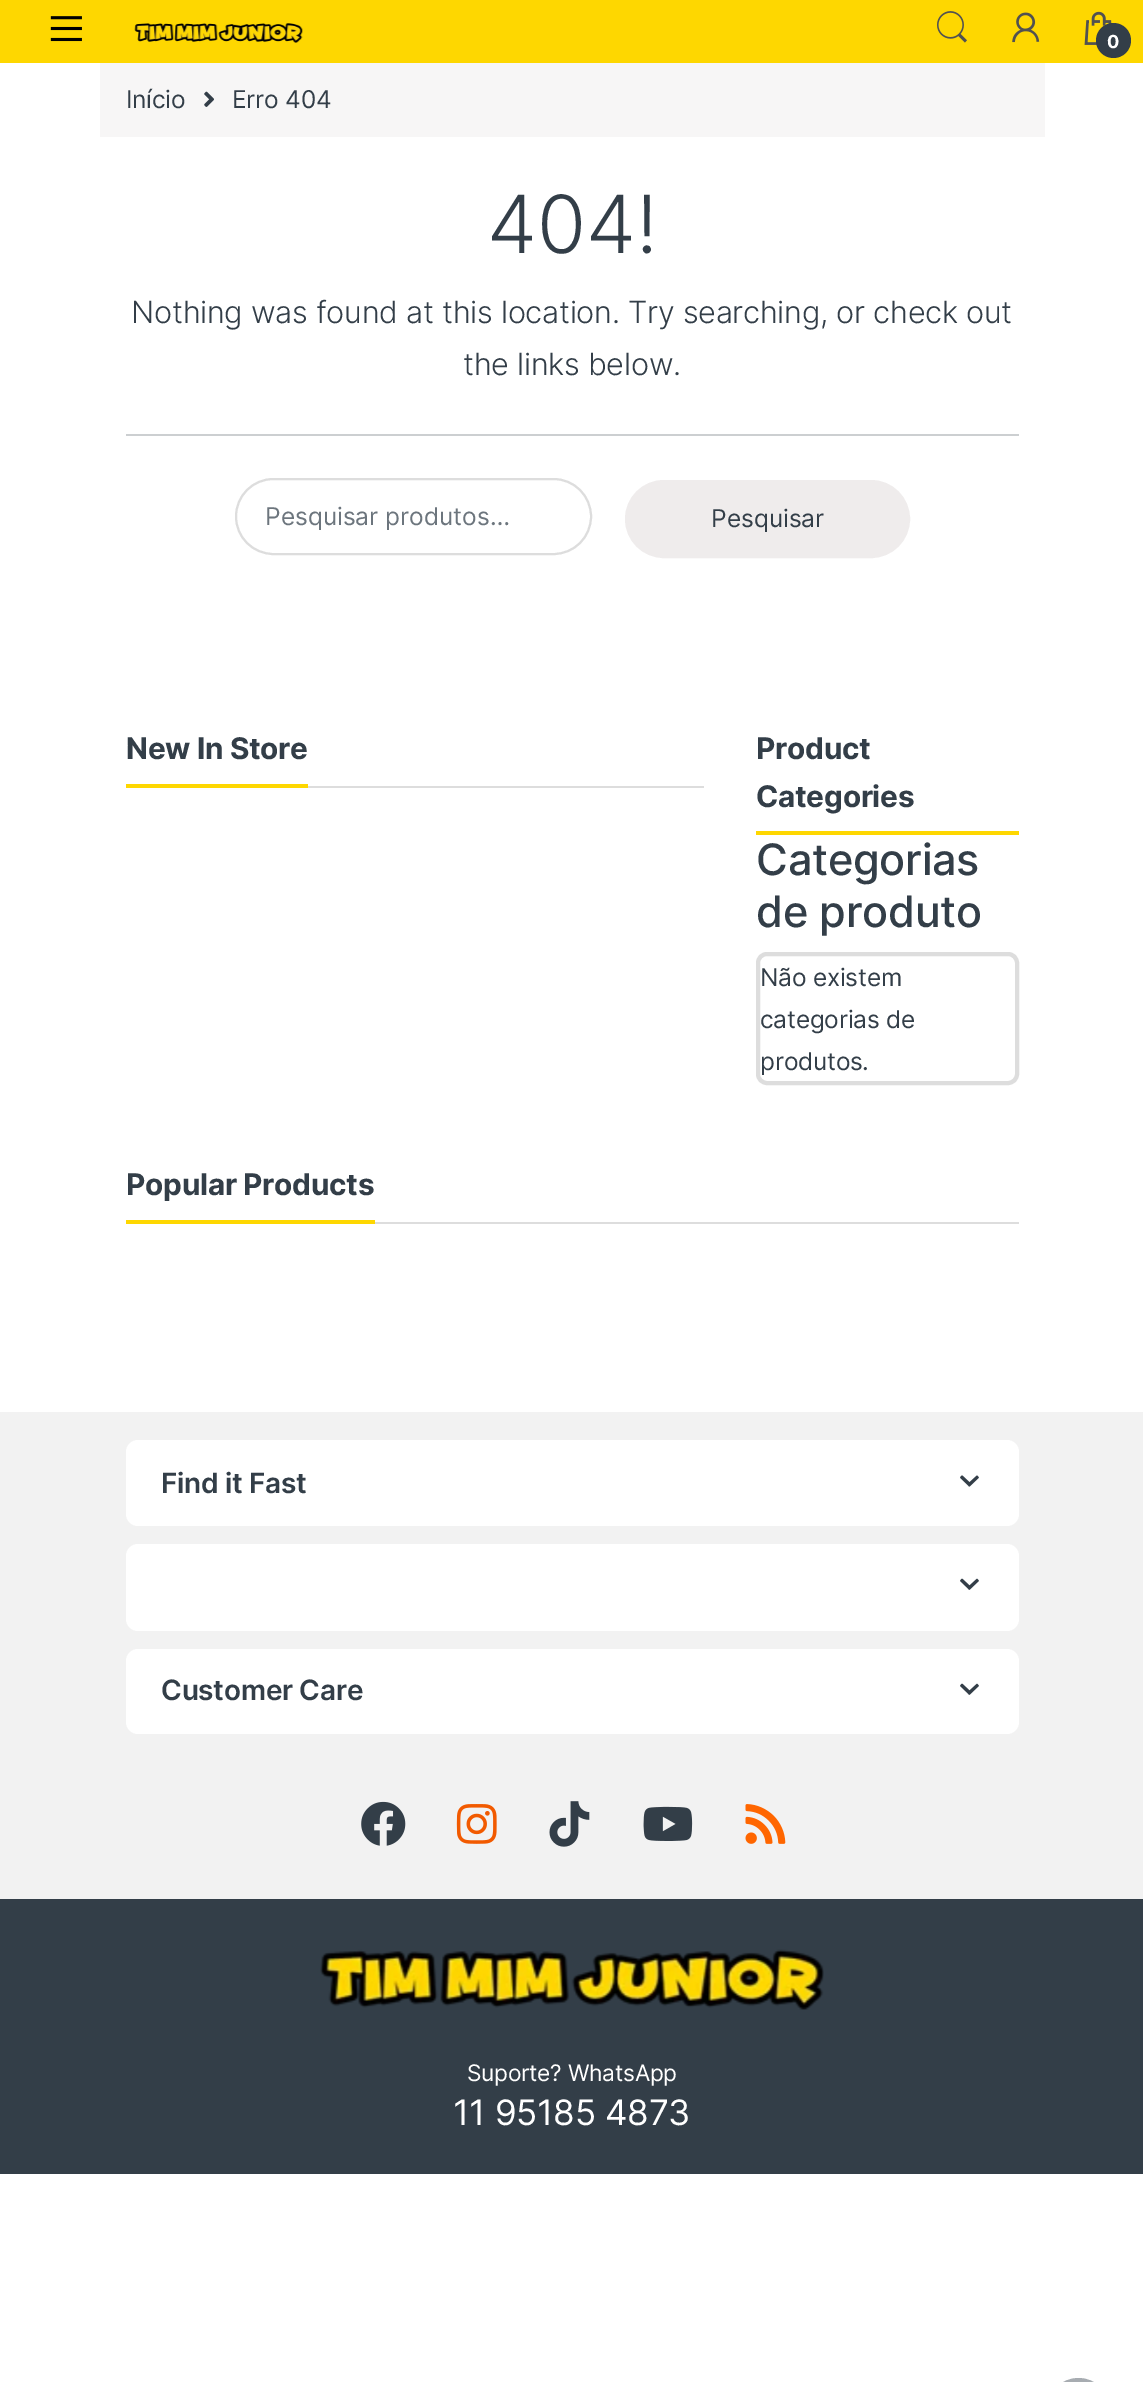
%!PS
<< /PageSize [1143 2382] >> setpagedevice
/roundrect { 5 dict begin { /r /h /w /y /x } { exch def } forall
  x r add y moveto x w add y 2 copy h add r arct x w add y h add x 1 index r arct
  x y h add x y r arct x y 2 copy exch w add exch r arct closepath end } def
/picture { 5 dict begin { /h /w /y /x /name } { exch def } forall
  gsave x y translate w h scale
  w h 8 [w 0 0 h 0 0] name (r) file false 3 colorimage grestore end } def
0 2382 translate 1 -1 scale
4 setmiterlimit
1 setgray
0 0 1143 2382 rectfill
0.996 0.843 0 setrgbcolor
0 0 1143 63 rectfill
(img1.rgb) 50 16 32 26 picture
(img2.rgb) 134 23 169 20 picture
(img3.rgb) 937 11 30 32 picture
(img4.rgb) 1012 12 28 31 picture
(img5.rgb) 1084 11 28 34 picture
0.2 0.243 0.282 setrgbcolor
newpath 1113.5 40.5 17.5 0 360 arc closepath fill
/Inter-Bold [18 0 0 -18 0 0] selectfont
1 setgray
1107 48 moveto -0.25 0 (0) ashow
0.969 0.965 0.965 setrgbcolor
100 63 945 74 rectfill
/Inter-Regular [24.5 0 0 -24.5 0 0] selectfont
0.2 0.243 0.282 setrgbcolor
126 108 moveto -0.25 0 (Início) ashow
(img6.rgb) 204 91 10 16 picture
232 108 moveto -0.25 0 (Erro 404) ashow
/Inter-Light [80 0 0 -80 0 0] selectfont
487 253 moveto -0.25 0 (404!) ashow
/Inter-Light [30.6 0 0 -30.6 0 0] selectfont
131 323 moveto -0.25 0 (Nothing was found at this location. Try searching, or check out) ashow
463 375 moveto -0.25 0 (the links below.) ashow
0.8 0.812 0.82 setrgbcolor
126 434 893 2 rectfill
0.867 setgray
2 setlinewidth
236 479 355 75 37.5 roundrect stroke
/Inter-Regular [24.5 0 0 -24.5 0 0] selectfont
0.424 0.459 0.49 setrgbcolor
265 525 moveto (Pesquisar produtos…) show
0.937 0.925 0.925 setrgbcolor
626 481 283 76 38 roundrect gsave fill grestore
stroke
0.2 0.243 0.282 setrgbcolor
711 527 moveto (Pesquisar) show
0.867 setgray
308 786 396 2 rectfill
/Inter-Bold [29.75 0 0 -29.75 0 0] selectfont
0.2 0.243 0.282 setrgbcolor
126 759 moveto -0.25 0 (New In Store) ashow
0.996 0.843 0 setrgbcolor
126 784 182 4 rectfill
0.2 0.243 0.282 setrgbcolor
756 759 moveto -0.25 0 (Product) ashow
756 807 moveto -0.25 0 (Categories) ashow
0.996 0.843 0 setrgbcolor
756 831 263 4 rectfill
/Inter-Medium [43.25 0 0 -43.25 0 0] selectfont
0.2 0.243 0.282 setrgbcolor
756 875 moveto -0.25 0 (Categorias) ashow
756 927 moveto -0.25 0 (de produto) ashow
0.867 setgray
4 setlinewidth
758 954 259 129 9 roundrect stroke
/Inter-Regular [24.5 0 0 -24.5 0 0] selectfont
0.2 0.243 0.282 setrgbcolor
760 986 moveto -0.25 0 (Não existem) ashow
760 1028 moveto -0.25 0 (categorias de) ashow
760 1070 moveto -0.25 0 (produtos.) ashow
0.867 setgray
375 1222 644 2 rectfill
/Inter-Bold [29.75 0 0 -29.75 0 0] selectfont
0.2 0.243 0.282 setrgbcolor
126 1195 moveto -0.25 0 (Popular Products) ashow
0.996 0.843 0 setrgbcolor
126 1220 249 4 rectfill
0.949 setgray
0 1412 1143 487 rectfill
1 setgray
126 1440 893 86 12 roundrect fill
/Inter-SemiBold [28 0 0 -28 0 0] selectfont
0.2 0.243 0.282 setrgbcolor
161 1493 moveto -0.25 0 (Find it Fast) ashow
(img7.rgb) 960 1475 19 12 picture
1 setgray
126 1544 893 87 12 roundrect fill
(img8.rgb) 960 1578 19 12 picture
126 1649 893 85 12 roundrect fill
0.2 0.243 0.282 setrgbcolor
161 1700 moveto -0.25 0 (Customer Care) ashow
(img8.rgb) 960 1683 19 12 picture
(img9.rgb) 361 1801 45 45 picture
(img10.rgb) 456 1804 41 40 picture
(img11.rgb) 549 1801 41 46 picture
(img12.rgb) 643 1806 50 35 picture
(img13.rgb) 745 1804 41 40 picture
0 1899 1143 275 rectfill
(img14.rgb) 320 1949 504 61 picture
/Inter-Regular [22.75 0 0 -22.75 0 0] selectfont
1 setgray
467 2081 moveto -0.25 0 (Suporte? WhatsApp) ashow
/Inter-Regular [35 0 0 -35 0 0] selectfont
453 2125 moveto -0.25 0 (11 95185 4873) ashow
0.655 0.675 0.694 setrgbcolor
1048 2379 61 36 30.5 roundrect gsave fill grestore
2 setlinewidth
stroke
showpage
